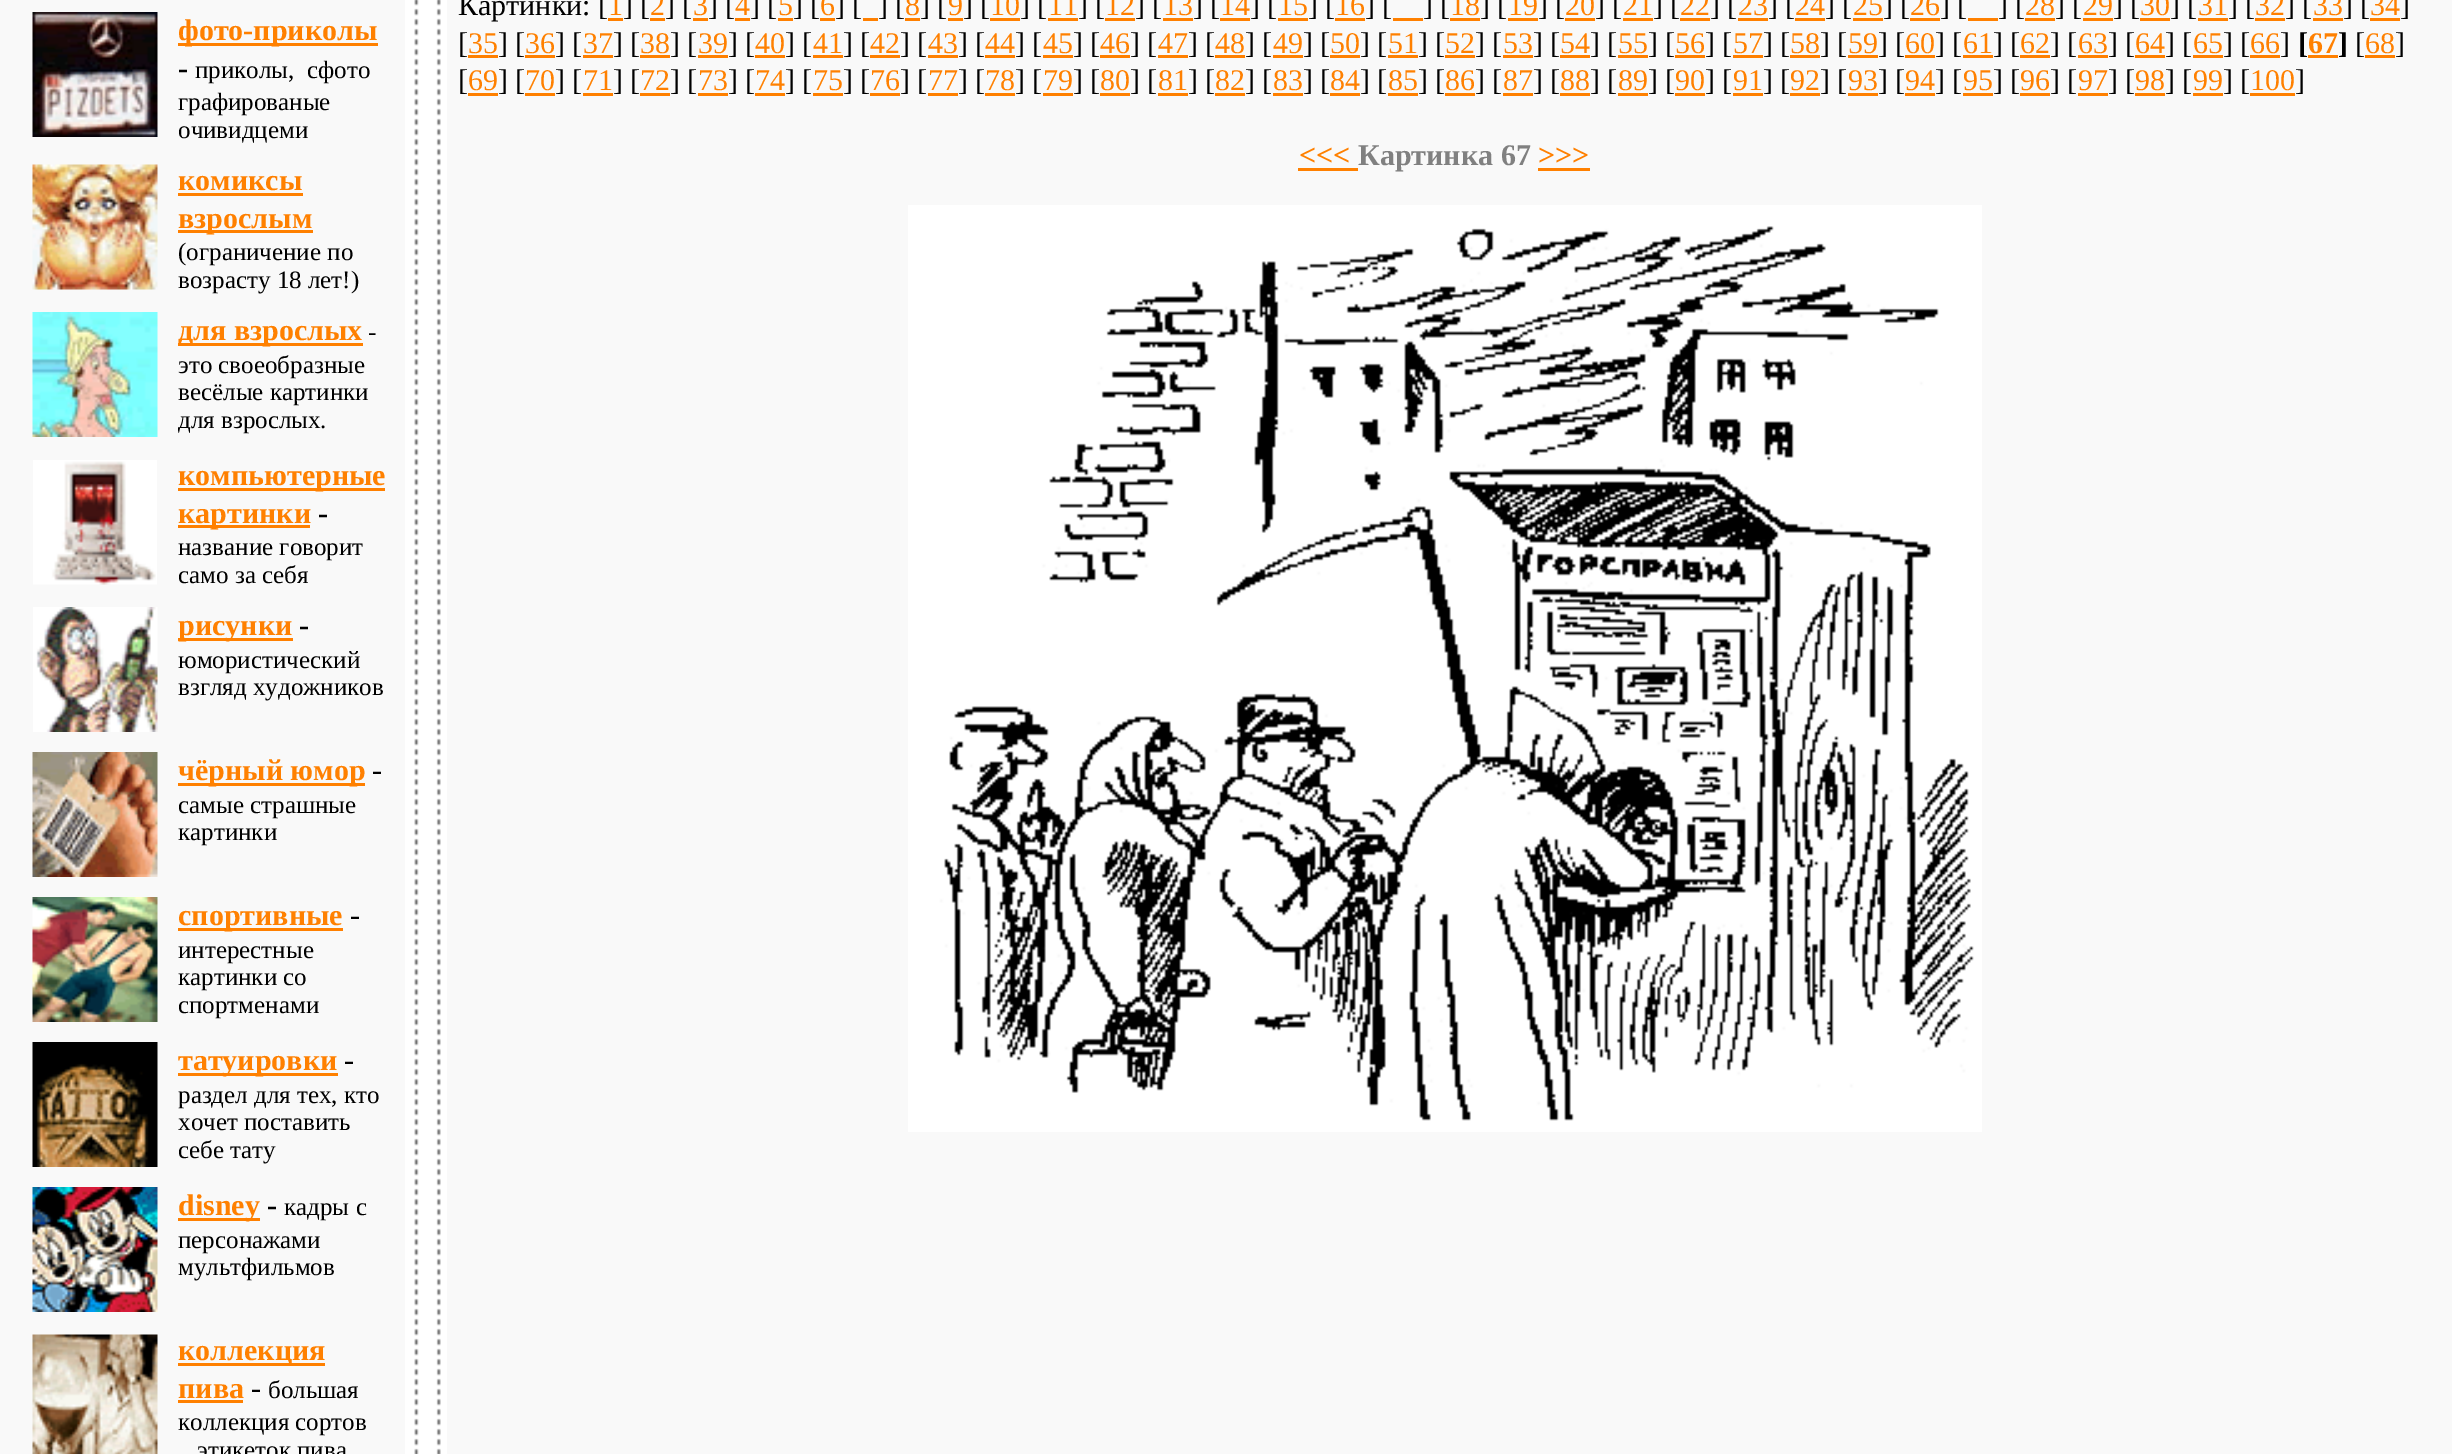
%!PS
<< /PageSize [2452 1454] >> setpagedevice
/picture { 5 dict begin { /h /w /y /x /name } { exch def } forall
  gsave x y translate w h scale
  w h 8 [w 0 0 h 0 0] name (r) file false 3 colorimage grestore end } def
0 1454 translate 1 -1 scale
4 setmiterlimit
0.976 setgray
0 0 2452 1454 rectfill
(img1.rgb) 32 12 126 125 picture
1 0.502 0 setrgbcolor
178 43 200 3 rectfill
/LiberationSerif-Bold [30 0 0 -30 0 0] selectfont
178 40 moveto (фото-приколы) show
0 setgray
178 78 moveto (-) show
/LiberationSerif-Regular [25 0 0 -25 0 0] selectfont
195 78 moveto (приколы,  сфото) show
178 110 moveto (графированые) show
178 138 moveto (очивидцеми) show
(img2.rgb) 32 164 126 126 picture
/LiberationSerif-Bold [30 0 0 -30 0 0] selectfont
1 0.502 0 setrgbcolor
178 190 moveto (комиксы) show
178 193 125 3 rectfill
178 230 135 3 rectfill
178 228 moveto (взрослым) show
/LiberationSerif-Regular [25 0 0 -25 0 0] selectfont
0 setgray
178 260 moveto (\(ограничение по) show
178 288 moveto (возрасту 18 лет!\)) show
(img3.rgb) 32 312 126 125 picture
1 0.502 0 setrgbcolor
178 343 185 3 rectfill
/LiberationSerif-Bold [30 0 0 -30 0 0] selectfont
178 340 moveto (для взрослыx) show
/LiberationSerif-Regular [25 0 0 -25 0 0] selectfont
0 setgray
368 340 moveto (-) show
178 373 moveto (это своеобразные) show
178 400 moveto (весёлые картинки) show
178 428 moveto (для взрослых.) show
(img4.rgb) 33 460 124 125 picture
1 0.502 0 setrgbcolor
178 488 207 3 rectfill
/LiberationSerif-Bold [30 0 0 -30 0 0] selectfont
178 485 moveto (компьютерные) show
178 525 132 3 rectfill
178 523 moveto (картинки) show
0 setgray
318 523 moveto (-) show
/LiberationSerif-Regular [25 0 0 -25 0 0] selectfont
178 555 moveto (название говорит) show
178 583 moveto (само за себя) show
(img5.rgb) 33 607 125 125 picture
1 0.502 0 setrgbcolor
178 638 115 3 rectfill
/LiberationSerif-Bold [30 0 0 -30 0 0] selectfont
178 635 moveto (рисунки) show
0 setgray
299 635 moveto (-) show
/LiberationSerif-Regular [25 0 0 -25 0 0] selectfont
178 668 moveto (юмористический) show
178 695 moveto (взгляд художников) show
(img6.rgb) 32 752 126 125 picture
1 0.502 0 setrgbcolor
178 783 187 3 rectfill
/LiberationSerif-Bold [30 0 0 -30 0 0] selectfont
178 780 moveto (чёрный юмор) show
/LiberationSerif-Regular [30 0 0 -30 0 0] selectfont
0 setgray
372 780 moveto (-) show
/LiberationSerif-Regular [25 0 0 -25 0 0] selectfont
178 813 moveto (самые страшные) show
178 840 moveto (картинки) show
(img7.rgb) 32 897 126 125 picture
1 0.502 0 setrgbcolor
178 928 165 3 rectfill
/LiberationSerif-Bold [30 0 0 -30 0 0] selectfont
178 925 moveto (спортивные) show
/LiberationSerif-Regular [30 0 0 -30 0 0] selectfont
0 setgray
350 925 moveto (-) show
/LiberationSerif-Regular [25 0 0 -25 0 0] selectfont
178 958 moveto (интерестные) show
178 985 moveto (картинки со) show
178 1013 moveto (спортменами) show
(img8.rgb) 32 1042 126 125 picture
1 0.502 0 setrgbcolor
178 1073 160 3 rectfill
/LiberationSerif-Bold [30 0 0 -30 0 0] selectfont
178 1070 moveto (татуировки) show
/LiberationSerif-Regular [30 0 0 -30 0 0] selectfont
0 setgray
344 1070 moveto (-) show
/LiberationSerif-Regular [25 0 0 -25 0 0] selectfont
178 1103 moveto (раздел для тех, кто) show
178 1130 moveto (хочет поставить) show
178 1158 moveto (себе тату) show
(img9.rgb) 32 1187 126 125 picture
1 0.502 0 setrgbcolor
178 1218 82 3 rectfill
/LiberationSerif-Bold [30 0 0 -30 0 0] selectfont
178 1215 moveto (disney) show
0 setgray
267 1215 moveto (-) show
/LiberationSerif-Regular [25 0 0 -25 0 0] selectfont
284 1215 moveto (кадры с) show
178 1248 moveto (персонажами) show
178 1275 moveto (мультфильмов) show
(img10.rgb) 32 1334 126 120 picture
1 0.502 0 setrgbcolor
178 1363 147 3 rectfill
/LiberationSerif-Bold [30 0 0 -30 0 0] selectfont
178 1360 moveto (коллекция) show
178 1398 moveto (пива) show
178 1400 65 3 rectfill
/LiberationSerif-Regular [30 0 0 -30 0 0] selectfont
0 setgray
251 1398 moveto (-) show
/LiberationSerif-Regular [25 0 0 -25 0 0] selectfont
268 1398 moveto (большая) show
178 1430 moveto (коллекция сортов) show
197 1458 moveto (этикеток пива) show
(img11.rgb) 405 0 42 1454 picture
/LiberationSerif-Regular [30 0 0 -30 0 0] selectfont
458 15 moveto (Картинки: [) show
1 0.502 0 setrgbcolor
608 15 moveto (1) show
608 18 15 3 rectfill
0 setgray
623 15 moveto (] [) show
1 0.502 0 setrgbcolor
650 15 moveto (2) show
650 18 15 3 rectfill
0 setgray
665 15 moveto (] [) show
1 0.502 0 setrgbcolor
693 15 moveto (3) show
693 18 15 3 rectfill
0 setgray
708 15 moveto (] [) show
1 0.502 0 setrgbcolor
735 15 moveto (4) show
735 18 15 3 rectfill
0 setgray
750 15 moveto (] [) show
1 0.502 0 setrgbcolor
778 15 moveto (5) show
778 18 15 3 rectfill
0 setgray
793 15 moveto (] [) show
1 0.502 0 setrgbcolor
820 15 moveto (6) show
820 18 15 3 rectfill
0 setgray
835 15 moveto (] [) show
878 15 moveto (] [) show
1 0.502 0 setrgbcolor
905 15 moveto (8) show
905 18 15 3 rectfill
0 setgray
920 15 moveto (] [) show
1 0.502 0 setrgbcolor
948 15 moveto (9) show
948 18 15 3 rectfill
0 setgray
963 15 moveto (] [) show
1 0.502 0 setrgbcolor
990 15 moveto (10) show
990 18 30 3 rectfill
0 setgray
1020 15 moveto (] [) show
1 0.502 0 setrgbcolor
1048 15 moveto (11) show
1048 18 30 3 rectfill
0 setgray
1078 15 moveto (] [) show
1 0.502 0 setrgbcolor
1105 15 moveto (12) show
1105 18 30 3 rectfill
0 setgray
1135 15 moveto (] [) show
1 0.502 0 setrgbcolor
1163 15 moveto (13) show
1163 18 30 3 rectfill
0 setgray
1193 15 moveto (] [) show
1 0.502 0 setrgbcolor
1220 15 moveto (14) show
1220 18 30 3 rectfill
0 setgray
1250 15 moveto (] [) show
1 0.502 0 setrgbcolor
1278 15 moveto (15) show
1278 18 30 3 rectfill
0 setgray
1308 15 moveto (] [) show
1 0.502 0 setrgbcolor
1335 15 moveto (16) show
1335 18 30 3 rectfill
0 setgray
1365 15 moveto (] [) show
1423 15 moveto (] [) show
1 0.502 0 setrgbcolor
1450 15 moveto (18) show
1450 18 30 3 rectfill
0 setgray
1480 15 moveto (] [) show
1 0.502 0 setrgbcolor
1508 15 moveto (19) show
1508 18 30 3 rectfill
0 setgray
1538 15 moveto (] [) show
1 0.502 0 setrgbcolor
1565 15 moveto (20) show
1565 18 30 3 rectfill
0 setgray
1595 15 moveto (] [) show
1 0.502 0 setrgbcolor
1623 15 moveto (21) show
1623 18 30 3 rectfill
0 setgray
1653 15 moveto (] [) show
1 0.502 0 setrgbcolor
1680 15 moveto (22) show
1680 18 30 3 rectfill
0 setgray
1710 15 moveto (] [) show
1 0.502 0 setrgbcolor
1738 15 moveto (23) show
1738 18 30 3 rectfill
0 setgray
1768 15 moveto (] [) show
1 0.502 0 setrgbcolor
1795 15 moveto (24) show
1795 18 30 3 rectfill
0 setgray
1825 15 moveto (] [) show
1 0.502 0 setrgbcolor
1853 15 moveto (25) show
1853 18 30 3 rectfill
0 setgray
1883 15 moveto (] [) show
1 0.502 0 setrgbcolor
1910 15 moveto (26) show
1910 18 30 3 rectfill
0 setgray
1940 15 moveto (] [) show
1998 15 moveto (] [) show
1 0.502 0 setrgbcolor
2025 15 moveto (28) show
2025 18 30 3 rectfill
0 setgray
2055 15 moveto (] [) show
1 0.502 0 setrgbcolor
2083 15 moveto (29) show
2083 18 30 3 rectfill
0 setgray
2113 15 moveto (] [) show
1 0.502 0 setrgbcolor
2140 15 moveto (30) show
2140 18 30 3 rectfill
0 setgray
2170 15 moveto (] [) show
1 0.502 0 setrgbcolor
2198 15 moveto (31) show
2198 18 30 3 rectfill
0 setgray
2228 15 moveto (] [) show
1 0.502 0 setrgbcolor
2255 15 moveto (32) show
2255 18 30 3 rectfill
0 setgray
2285 15 moveto (] [) show
1 0.502 0 setrgbcolor
2313 15 moveto (33) show
2313 18 30 3 rectfill
0 setgray
2343 15 moveto (] [) show
1 0.502 0 setrgbcolor
2370 15 moveto (34) show
2370 18 30 3 rectfill
0 setgray
2400 15 moveto (]) show
1 0.502 0 setrgbcolor
863 18 15 3 rectfill
1393 18 30 3 rectfill
1968 18 30 3 rectfill
0 setgray
458 53 moveto ([) show
1 0.502 0 setrgbcolor
468 53 moveto (35) show
468 55 30 3 rectfill
0 setgray
498 53 moveto (] [) show
1 0.502 0 setrgbcolor
525 53 moveto (36) show
525 55 30 3 rectfill
0 setgray
555 53 moveto (] [) show
1 0.502 0 setrgbcolor
583 53 moveto (37) show
583 55 30 3 rectfill
0 setgray
613 53 moveto (] [) show
1 0.502 0 setrgbcolor
640 53 moveto (38) show
640 55 30 3 rectfill
0 setgray
670 53 moveto (] [) show
1 0.502 0 setrgbcolor
698 53 moveto (39) show
698 55 30 3 rectfill
0 setgray
728 53 moveto (] [) show
1 0.502 0 setrgbcolor
755 53 moveto (40) show
755 55 30 3 rectfill
0 setgray
785 53 moveto (] [) show
1 0.502 0 setrgbcolor
813 53 moveto (41) show
813 55 30 3 rectfill
0 setgray
843 53 moveto (] [) show
1 0.502 0 setrgbcolor
870 53 moveto (42) show
870 55 30 3 rectfill
0 setgray
900 53 moveto (] [) show
1 0.502 0 setrgbcolor
928 53 moveto (43) show
928 55 30 3 rectfill
0 setgray
958 53 moveto (] [) show
1 0.502 0 setrgbcolor
985 53 moveto (44) show
985 55 30 3 rectfill
0 setgray
1015 53 moveto (] [) show
1 0.502 0 setrgbcolor
1043 53 moveto (45) show
1043 55 30 3 rectfill
0 setgray
1073 53 moveto (] [) show
1 0.502 0 setrgbcolor
1100 53 moveto (46) show
1100 55 30 3 rectfill
0 setgray
1130 53 moveto (] [) show
1 0.502 0 setrgbcolor
1158 53 moveto (47) show
1158 55 30 3 rectfill
0 setgray
1188 53 moveto (] [) show
1 0.502 0 setrgbcolor
1215 53 moveto (48) show
1215 55 30 3 rectfill
0 setgray
1245 53 moveto (] [) show
1 0.502 0 setrgbcolor
1273 53 moveto (49) show
1273 55 30 3 rectfill
0 setgray
1303 53 moveto (] [) show
1 0.502 0 setrgbcolor
1330 53 moveto (50) show
1330 55 30 3 rectfill
0 setgray
1360 53 moveto (] [) show
1 0.502 0 setrgbcolor
1388 53 moveto (51) show
1388 55 30 3 rectfill
0 setgray
1418 53 moveto (] [) show
1 0.502 0 setrgbcolor
1445 53 moveto (52) show
1445 55 30 3 rectfill
0 setgray
1475 53 moveto (] [) show
1 0.502 0 setrgbcolor
1503 53 moveto (53) show
1503 55 30 3 rectfill
0 setgray
1533 53 moveto (] [) show
1 0.502 0 setrgbcolor
1560 53 moveto (54) show
1560 55 30 3 rectfill
0 setgray
1590 53 moveto (] [) show
1 0.502 0 setrgbcolor
1618 53 moveto (55) show
1618 55 30 3 rectfill
0 setgray
1648 53 moveto (] [) show
1 0.502 0 setrgbcolor
1675 53 moveto (56) show
1675 55 30 3 rectfill
0 setgray
1705 53 moveto (] [) show
1 0.502 0 setrgbcolor
1733 53 moveto (57) show
1733 55 30 3 rectfill
0 setgray
1763 53 moveto (] [) show
1 0.502 0 setrgbcolor
1790 53 moveto (58) show
1790 55 30 3 rectfill
0 setgray
1820 53 moveto (] [) show
1 0.502 0 setrgbcolor
1848 53 moveto (59) show
1848 55 30 3 rectfill
0 setgray
1878 53 moveto (] [) show
1 0.502 0 setrgbcolor
1905 53 moveto (60) show
1905 55 30 3 rectfill
0 setgray
1935 53 moveto (] [) show
1 0.502 0 setrgbcolor
1963 53 moveto (61) show
1963 55 30 3 rectfill
0 setgray
1993 53 moveto (] [) show
1 0.502 0 setrgbcolor
2020 53 moveto (62) show
2020 55 30 3 rectfill
0 setgray
2050 53 moveto (] [) show
1 0.502 0 setrgbcolor
2078 53 moveto (63) show
2078 55 30 3 rectfill
0 setgray
2108 53 moveto (] [) show
1 0.502 0 setrgbcolor
2135 53 moveto (64) show
2135 55 30 3 rectfill
0 setgray
2165 53 moveto (] [) show
1 0.502 0 setrgbcolor
2193 53 moveto (65) show
2193 55 30 3 rectfill
0 setgray
2223 53 moveto (] [) show
1 0.502 0 setrgbcolor
2250 53 moveto (66) show
2250 55 30 3 rectfill
0 setgray
2280 53 moveto (]) show
/LiberationSerif-Bold [30 0 0 -30 0 0] selectfont
2298 53 moveto ([) show
1 0.502 0 setrgbcolor
2308 53 moveto (67) show
0 setgray
2338 53 moveto (]) show
1 0.502 0 setrgbcolor
2308 55 30 3 rectfill
/LiberationSerif-Regular [30 0 0 -30 0 0] selectfont
0 setgray
2355 53 moveto ([) show
1 0.502 0 setrgbcolor
2365 53 moveto (68) show
2365 55 30 3 rectfill
0 setgray
2395 53 moveto (]) show
458 90 moveto ([) show
1 0.502 0 setrgbcolor
468 90 moveto (69) show
468 93 30 3 rectfill
0 setgray
498 90 moveto (] [) show
1 0.502 0 setrgbcolor
525 90 moveto (70) show
525 93 30 3 rectfill
0 setgray
555 90 moveto (] [) show
1 0.502 0 setrgbcolor
583 90 moveto (71) show
583 93 30 3 rectfill
0 setgray
613 90 moveto (] [) show
1 0.502 0 setrgbcolor
640 90 moveto (72) show
640 93 30 3 rectfill
0 setgray
670 90 moveto (] [) show
1 0.502 0 setrgbcolor
698 90 moveto (73) show
698 93 30 3 rectfill
0 setgray
728 90 moveto (] [) show
1 0.502 0 setrgbcolor
755 90 moveto (74) show
755 93 30 3 rectfill
0 setgray
785 90 moveto (] [) show
1 0.502 0 setrgbcolor
813 90 moveto (75) show
813 93 30 3 rectfill
0 setgray
843 90 moveto (] [) show
1 0.502 0 setrgbcolor
870 90 moveto (76) show
870 93 30 3 rectfill
0 setgray
900 90 moveto (] [) show
1 0.502 0 setrgbcolor
928 90 moveto (77) show
928 93 30 3 rectfill
0 setgray
958 90 moveto (] [) show
1 0.502 0 setrgbcolor
985 90 moveto (78) show
985 93 30 3 rectfill
0 setgray
1015 90 moveto (] [) show
1 0.502 0 setrgbcolor
1043 90 moveto (79) show
1043 93 30 3 rectfill
0 setgray
1073 90 moveto (] [) show
1 0.502 0 setrgbcolor
1100 90 moveto (80) show
1100 93 30 3 rectfill
0 setgray
1130 90 moveto (] [) show
1 0.502 0 setrgbcolor
1158 90 moveto (81) show
1158 93 30 3 rectfill
0 setgray
1188 90 moveto (] [) show
1 0.502 0 setrgbcolor
1215 90 moveto (82) show
1215 93 30 3 rectfill
0 setgray
1245 90 moveto (] [) show
1 0.502 0 setrgbcolor
1273 90 moveto (83) show
1273 93 30 3 rectfill
0 setgray
1303 90 moveto (] [) show
1 0.502 0 setrgbcolor
1330 90 moveto (84) show
1330 93 30 3 rectfill
0 setgray
1360 90 moveto (] [) show
1 0.502 0 setrgbcolor
1388 90 moveto (85) show
1388 93 30 3 rectfill
0 setgray
1418 90 moveto (] [) show
1 0.502 0 setrgbcolor
1445 90 moveto (86) show
1445 93 30 3 rectfill
0 setgray
1475 90 moveto (] [) show
1 0.502 0 setrgbcolor
1503 90 moveto (87) show
1503 93 30 3 rectfill
0 setgray
1533 90 moveto (] [) show
1 0.502 0 setrgbcolor
1560 90 moveto (88) show
1560 93 30 3 rectfill
0 setgray
1590 90 moveto (] [) show
1 0.502 0 setrgbcolor
1618 90 moveto (89) show
1618 93 30 3 rectfill
0 setgray
1648 90 moveto (] [) show
1 0.502 0 setrgbcolor
1675 90 moveto (90) show
1675 93 30 3 rectfill
0 setgray
1705 90 moveto (] [) show
1 0.502 0 setrgbcolor
1733 90 moveto (91) show
1733 93 30 3 rectfill
0 setgray
1763 90 moveto (] [) show
1 0.502 0 setrgbcolor
1790 90 moveto (92) show
1790 93 30 3 rectfill
0 setgray
1820 90 moveto (] [) show
1 0.502 0 setrgbcolor
1848 90 moveto (93) show
1848 93 30 3 rectfill
0 setgray
1878 90 moveto (] [) show
1 0.502 0 setrgbcolor
1905 90 moveto (94) show
1905 93 30 3 rectfill
0 setgray
1935 90 moveto (] [) show
1 0.502 0 setrgbcolor
1963 90 moveto (95) show
1963 93 30 3 rectfill
0 setgray
1993 90 moveto (] [) show
1 0.502 0 setrgbcolor
2020 90 moveto (96) show
2020 93 30 3 rectfill
0 setgray
2050 90 moveto (] [) show
1 0.502 0 setrgbcolor
2078 90 moveto (97) show
2078 93 30 3 rectfill
0 setgray
2108 90 moveto (] [) show
1 0.502 0 setrgbcolor
2135 90 moveto (98) show
2135 93 30 3 rectfill
0 setgray
2165 90 moveto (] [) show
1 0.502 0 setrgbcolor
2193 90 moveto (99) show
2193 93 30 3 rectfill
0 setgray
2223 90 moveto (] [) show
1 0.502 0 setrgbcolor
2250 90 moveto (100) show
2250 93 45 3 rectfill
0 setgray
2295 90 moveto (]) show
/LiberationSerif-Bold [30 0 0 -30 0 0] selectfont
1 0.502 0 setrgbcolor
1299 165 moveto (<<<) show
0.502 setgray
1358 165 moveto (Картинка 67) show
1 0.502 0 setrgbcolor
1298 168 60 3 rectfill
1538 165 moveto (>>>) show
1538 168 52 3 rectfill
(img12.rgb) 908 205 1074 927 picture
showpage
